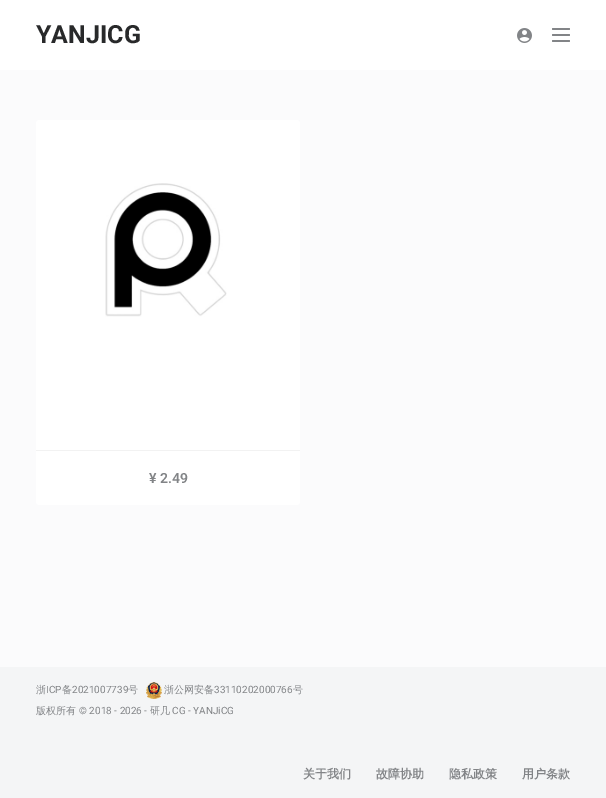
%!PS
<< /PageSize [606 798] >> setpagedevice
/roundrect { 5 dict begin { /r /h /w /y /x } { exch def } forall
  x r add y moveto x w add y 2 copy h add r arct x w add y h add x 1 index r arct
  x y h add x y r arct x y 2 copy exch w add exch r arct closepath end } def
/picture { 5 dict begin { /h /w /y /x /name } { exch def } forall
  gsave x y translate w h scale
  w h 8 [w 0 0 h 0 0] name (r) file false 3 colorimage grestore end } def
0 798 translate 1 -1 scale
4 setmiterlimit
0.984 0.984 0.988 setrgbcolor
0 0 606 798 rectfill
1 setgray
0 0 606 70 rectfill
/Roboto-Bold [25 0 0 -25 0 0] selectfont
0.157 0.161 0.165 setrgbcolor
36 43 moveto (YANJICG) show
(img1.rgb) 517 28 15 15 picture
0.51 0.518 0.529 setrgbcolor
552 28 18 2 1 roundrect fill
552 34 18 2 1 roundrect fill
552 40 18 2 1 roundrect fill
1 setgray
36 120 264 385 3 roundrect fill
(img2.rgb) 105 183 122 134 picture
0.949 setgray
36 450 264 1 rectfill
/Roboto-SemiBold [14 0 0 -14 0 0] selectfont
0.51 0.518 0.529 setrgbcolor
149 483 moveto (¥ 2.49) show
0.957 0.961 0.965 setrgbcolor
0 667 606 131 rectfill
/WenQuanYiZenHei-Medium [10 0 0 -10 0 0] selectfont
0.51 0.518 0.529 setrgbcolor
36 693 moveto (浙) show
/Roboto-Regular [10 0 0 -10 0 0] selectfont
46 693 moveto (ICP) show
/WenQuanYiZenHei-Medium [10 0 0 -10 0 0] selectfont
62 693 moveto (备) show
/Roboto-Regular [10 0 0 -10 0 0] selectfont
72 693 moveto (2021007739) show
/WenQuanYiZenHei-Medium [10 0 0 -10 0 0] selectfont
128 693 moveto (号) show
(img3.rgb) 146 682 16 17 picture
164 693 moveto (浙公网安备) show
/Roboto-Regular [10 0 0 -10 0 0] selectfont
214 693 moveto (33110202000766) show
/WenQuanYiZenHei-Medium [10 0 0 -10 0 0] selectfont
293 693 moveto (号) show
36 714 moveto (版权所有) show
/Roboto-Regular [10 0 0 -10 0 0] selectfont
79 714 moveto (© 2018 - 2026 -) show
/WenQuanYiZenHei-Medium [10 0 0 -10 0 0] selectfont
150 714 moveto (研几) show
/Roboto-Regular [10 0 0 -10 0 0] selectfont
172 714 moveto (CG - YANJiCG) show
/WenQuanYiZenHei-Bold [12 0 0 -12 0 0] selectfont
303 778 moveto (关于我们) show
376 778 moveto (故障协助) show
449 778 moveto (隐私政策) show
522 778 moveto (用户条款) show
showpage
